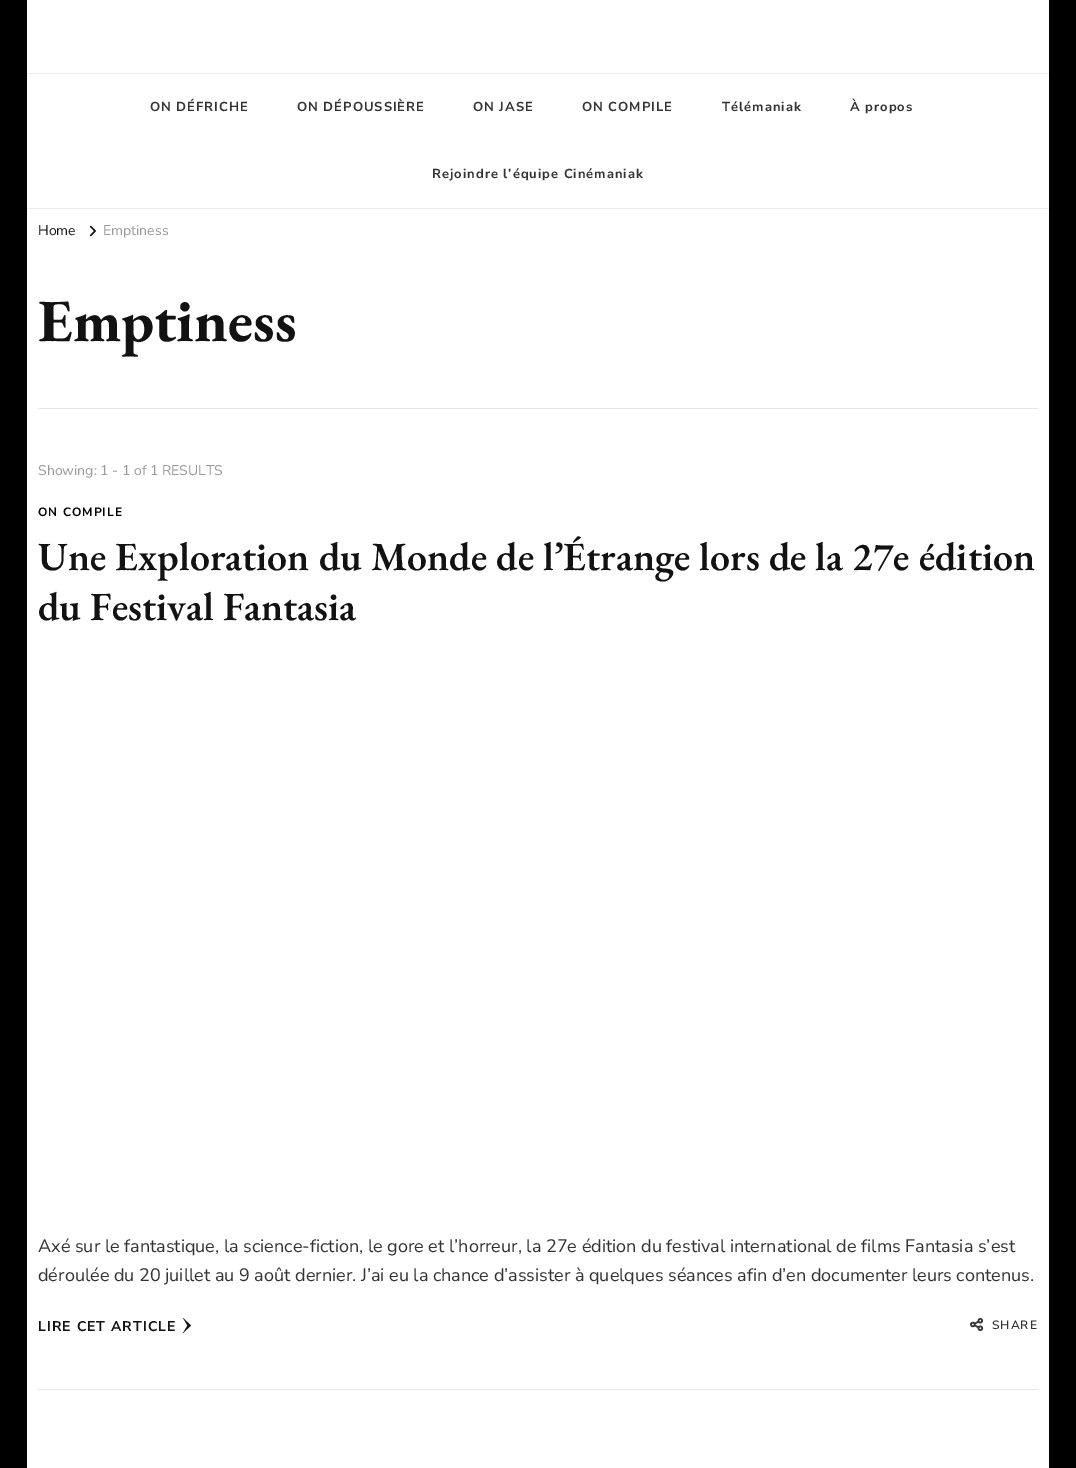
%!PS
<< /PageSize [1076 1468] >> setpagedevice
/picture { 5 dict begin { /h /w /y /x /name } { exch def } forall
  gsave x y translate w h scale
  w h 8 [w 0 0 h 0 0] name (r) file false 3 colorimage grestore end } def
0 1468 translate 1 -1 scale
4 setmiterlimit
0 setgray
0 0 1076 1468 rectfill
1 setgray
27 0 1022 1468 rectfill
0.929 setgray
27 73 1022 1 rectfill
27 208 1022 1 rectfill
/NunitoSans-Bold [13 0 0 -13 0 0] selectfont
0.2 setgray
150 111 moveto 1 0 (ON DÉFRICHE) ashow
297 111 moveto 1 0 (ON DÉPOUSSIÈRE) ashow
473 111 moveto 1 0 (ON JASE) ashow
582 111 moveto 1 0 (ON COMPILE) ashow
722 111 moveto 1 0 (Télémaniak) ashow
850 111 moveto 1 0 (À propos) ashow
432 178 moveto 1 0 (Rejoindre l’équipe Cinémaniak) ashow
/NunitoSans-Regular [14 0 0 -14 0 0] selectfont
0.071 setgray
38 235 moveto (Home) show
(img1.rgb) 89 225 7 12 picture
0.6 setgray
103 235 moveto (Emptiness) show
0.902 setgray
38 408 1000 1 rectfill
/EBGaramond-Bold [60 0 0 -60 0 0] selectfont
0.071 setgray
38 341 moveto (Emptiness) show
/NunitoSans-Regular [14 0 0 -14 0 0] selectfont
0.6 setgray
38 475 moveto (Showing: 1 - 1 of 1 RESULTS) show
0.902 setgray
38 1389 1000 1 rectfill
/NunitoSans-Bold [12 0 0 -12 0 0] selectfont
0 setgray
38 516 moveto 1 0 (ON COMPILE) ashow
/EBGaramond-SemiBold [40 0 0 -40 0 0] selectfont
0.071 setgray
38 570 moveto (Une Exploration du Monde de l’Étrange lors de la 27e édition) show
38 620 moveto (du Festival Fantasia) show
/NunitoSans-Regular [18 0 0 -18 0 0] selectfont
0.2 setgray
38 1252 moveto (Axé sur le fantastique, la science-fiction, le gore et l’horreur, la 27e édition du festival international de films Fantasia s’est) show
38 1281 moveto (déroulée du 20 juillet au 9 août dernier. J’ai eu la chance d’assister à quelques séances afin d’en documenter leurs contenus.) show
/NunitoSans-Bold [14 0 0 -14 0 0] selectfont
0.071 setgray
38 1331 moveto 1 0 (LIRE CET ARTICLE) ashow
newpath 191 1325.5 moveto 183 1333 lineto 187.5 1325.5 lineto 183 1318 lineto closepath fill
(img2.rgb) 970 1318 14 13 picture
/NunitoSans-SemiBold [12 0 0 -12 0 0] selectfont
0.2 setgray
992 1329 moveto 1 0 (SHARE) ashow
showpage
